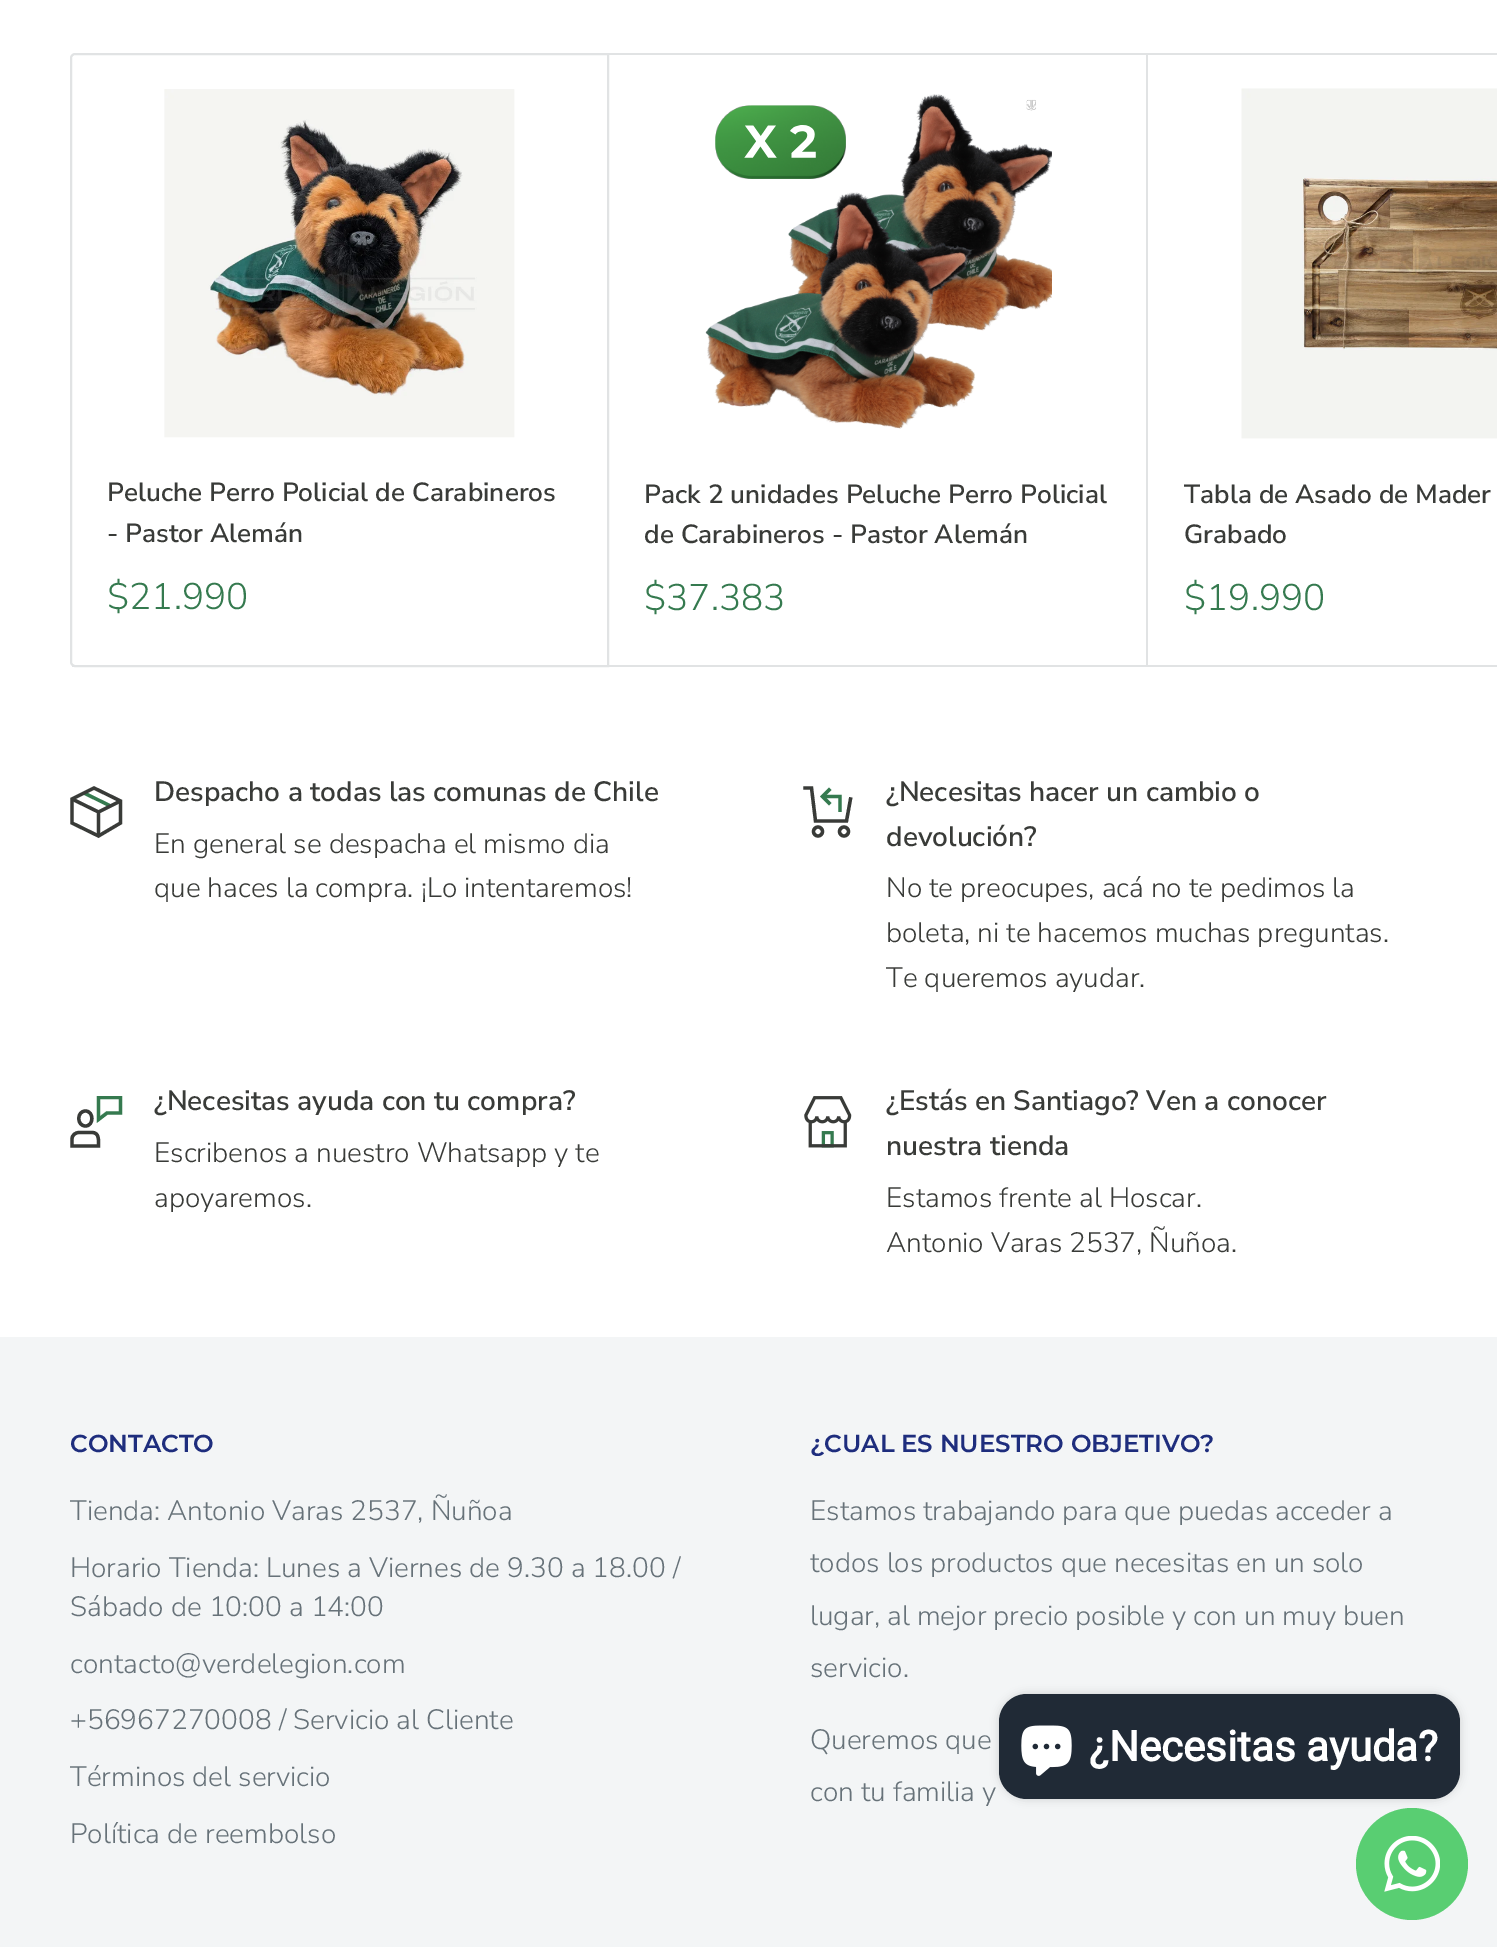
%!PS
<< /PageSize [1497 1947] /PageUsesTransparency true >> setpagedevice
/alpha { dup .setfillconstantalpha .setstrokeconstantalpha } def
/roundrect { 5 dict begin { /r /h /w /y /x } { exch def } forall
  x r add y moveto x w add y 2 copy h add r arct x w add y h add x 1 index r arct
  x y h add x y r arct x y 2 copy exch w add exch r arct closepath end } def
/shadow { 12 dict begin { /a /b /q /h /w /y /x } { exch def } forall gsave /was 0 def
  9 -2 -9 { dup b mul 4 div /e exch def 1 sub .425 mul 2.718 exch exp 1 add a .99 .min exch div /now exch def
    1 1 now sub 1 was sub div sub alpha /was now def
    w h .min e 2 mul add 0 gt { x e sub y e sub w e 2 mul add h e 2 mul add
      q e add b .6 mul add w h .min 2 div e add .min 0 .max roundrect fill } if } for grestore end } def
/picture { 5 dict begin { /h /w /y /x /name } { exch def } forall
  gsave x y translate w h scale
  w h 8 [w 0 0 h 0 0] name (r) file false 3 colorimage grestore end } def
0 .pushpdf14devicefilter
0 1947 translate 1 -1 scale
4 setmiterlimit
1 setgray
0 0 1497 1947 rectfill
0.882 0.89 0.894 setrgbcolor
2 setlinewidth
newpath 75 54 moveto 608 54 lineto 608 666 lineto 75 666 lineto 73 666 71 664 71 662 curveto 71 58 lineto 71 56 73 54 75 54 curveto closepath stroke
(img1.rgb) 164 89 351 349 picture
/NunitoSans-SemiBold [26.25 0 0 -26.25 0 0] selectfont
0.224 0.231 0.22 setrgbcolor
107 501 moveto (Peluche Perro Policial de Carabineros) show
107 542 moveto (- Pastor Alemán) show
/NunitoSans-Light [37 0 0 -37 0 0] selectfont
0.208 0.478 0.31 setrgbcolor
107 609 moveto ($21.990) show
0.882 0.89 0.894 setrgbcolor
72 666 2 1 rectfill
609 53 888 2 rectfill
1146 53 2 614 rectfill
609 665 888 2 rectfill
(img2.rgb) 705 94 347 335 picture
/NunitoSans-SemiBold [26.25 0 0 -26.25 0 0] selectfont
0.224 0.231 0.22 setrgbcolor
644 503 moveto (Pack 2 unidades Peluche Perro Policial) show
644 543 moveto (de Carabineros - Pastor Alemán) show
/NunitoSans-Light [37 0 0 -37 0 0] selectfont
0.208 0.478 0.31 setrgbcolor
644 610 moveto ($37.383) show
(img3.rgb) 1241 88 256 351 picture
/NunitoSans-SemiBold [26.25 0 0 -26.25 0 0] selectfont
0.224 0.231 0.22 setrgbcolor
1184 503 moveto (Tabla de Asado de Mader) show
1184 543 moveto (Grabado) show
/NunitoSans-Light [37 0 0 -37 0 0] selectfont
0.208 0.478 0.31 setrgbcolor
1184 610 moveto ($19.990) show
3.3 setlinewidth
newpath 84 793 moveto 110.5 806 lineto stroke
0.224 0.231 0.22 setrgbcolor
newpath 120.5 801 moveto 98.5 812 lineto 72 799 lineto 98.5 812 moveto 98.5 836 lineto stroke
2 setlinecap
newpath 120.5 801 moveto 120.5 823 lineto 98.5 836 lineto 72 823 lineto 72 799 lineto 94 788 lineto closepath stroke
/NunitoSans-SemiBold [28 0 0 -28 0 0] selectfont
154 801 moveto (Despacho a todas las comunas de Chile) show
/NunitoSans-Light [28 0 0 -28 0 0] selectfont
154 853 moveto (En general se despacha el mismo dia) show
154 897 moveto (que haces la compra. ¡Lo intentaremos!) show
0.208 0.478 0.31 setrgbcolor
0 setlinecap
newpath 822.5 796.5 moveto 840 796.5 lineto 840 812 lineto stroke
2 setlinecap
newpath 829 803 moveto 822.5 796.5 lineto 829 790 lineto stroke
0.224 0.231 0.22 setrgbcolor
newpath 850.5 799 moveto 846.5 821 lineto 815.5 821 lineto 811.5 788 lineto 805 788 lineto stroke
0 setlinecap
newpath 818 831.5 4.5 0 360 arc closepath stroke
newpath 844 831.5 4.5 0 360 arc closepath stroke
/NunitoSans-SemiBold [28 0 0 -28 0 0] selectfont
886 801 moveto (¿Necesitas hacer un cambio o) show
886 846 moveto (devolución?) show
/NunitoSans-Light [28 0 0 -28 0 0] selectfont
886 897 moveto (No te preocupes, acá no te pedimos la) show
886 942 moveto (boleta, ni te hacemos muchas preguntas.) show
886 987 moveto (Te queremos ayudar.) show
2 setlinecap
newpath 92 1132.5 moveto 79 1132.5 lineto 75 1132.5 72 1135.5 72 1139 curveto 72 1146 lineto 98.5 1146 lineto 98.5 1140.5 99.5 1132.5 92 1132.5 curveto closepath 85.5 1126 moveto 76.5 1126 76.5 1111 85.5 1111 curveto 94 1111 94 1126 85.5 1126 curveto closepath stroke
gsave
70 1096 53 52 rectclip
0.208 0.478 0.31 setrgbcolor
newpath 98.5 1097.5 moveto 98.5 1119.5 lineto 107 1113 lineto 120.5 1113 lineto 120.5 1097.5 lineto closepath stroke
grestore
/NunitoSans-SemiBold [28 0 0 -28 0 0] selectfont
154 1110 moveto (¿Necesitas ayuda con tu compra?) show
/NunitoSans-Light [28 0 0 -28 0 0] selectfont
154 1162 moveto (Escribenos a nuestro Whatsapp y te) show
154 1207 moveto (apoyaremos.) show
(img4.rgb) 804 1096 48 52 picture
/NunitoSans-SemiBold [28 0 0 -28 0 0] selectfont
886 1110 moveto (¿Estás en Santiago? Ven a conocer) show
886 1155 moveto (nuestra tienda) show
/NunitoSans-Light [28 0 0 -28 0 0] selectfont
886 1207 moveto (Estamos frente al Hoscar.) show
886 1252 moveto (Antonio Varas 2537, Ñuñoa.) show
0.953 0.961 0.965 setrgbcolor
0 1337 1497 610 rectfill
/Montserrat-SemiBold [24.5 0 0 -24.5 0 0] selectfont
0.118 0.176 0.49 setrgbcolor
70 1452 moveto (CONTACTO) show
/NunitoSans-Light [28 0 0 -28 0 0] selectfont
0.404 0.447 0.475 setrgbcolor
70 1520 moveto (Tienda: Antonio Varas 2537, Ñuñoa) show
70 1577 moveto (Horario Tienda: Lunes a Viernes de 9.30 a 18.00 /) show
70 1616 moveto (Sábado de 10:00 a 14:00) show
70 1673 moveto (contacto@verdelegion.com) show
70 1729 moveto (+56967270008 / Servicio al Cliente) show
70 1786 moveto (Términos del servicio) show
70 1843 moveto (Política de reembolso) show
/Montserrat-SemiBold [24.5 0 0 -24.5 0 0] selectfont
0.118 0.176 0.49 setrgbcolor
810 1452 moveto (¿CUAL ES NUESTRO OBJETIVO?) show
/NunitoSans-Light [28 0 0 -28 0 0] selectfont
0.404 0.447 0.475 setrgbcolor
810 1520 moveto (Estamos trabajando para que puedas acceder a) show
810 1572 moveto (todos los productos que necesitas en un solo) show
810 1625 moveto (lugar, al mejor precio posible y con un muy buen) show
810 1677 moveto (servicio.) show
810 1749 moveto (Queremos que) show
810 1801 moveto (con tu familia y) show
0.349 0.808 0.447 setrgbcolor
newpath 1412 1864 56 0 360 arc closepath fill
0 setgray
999 1694 461 105 28 4.5 0.15 shadow
0.125 0.165 0.212 setrgbcolor
999 1694 461 105 28 roundrect fill
(img5.rgb) 1021 1725 51 51 picture
/Roboto-Bold [42 0 0 -42 0 0] selectfont
1 setgray
1089 1761 moveto (¿Necesitas ayuda?) show
(img6.rgb) 1384 1836 56 56 picture
.poppdf14devicefilter showpage
